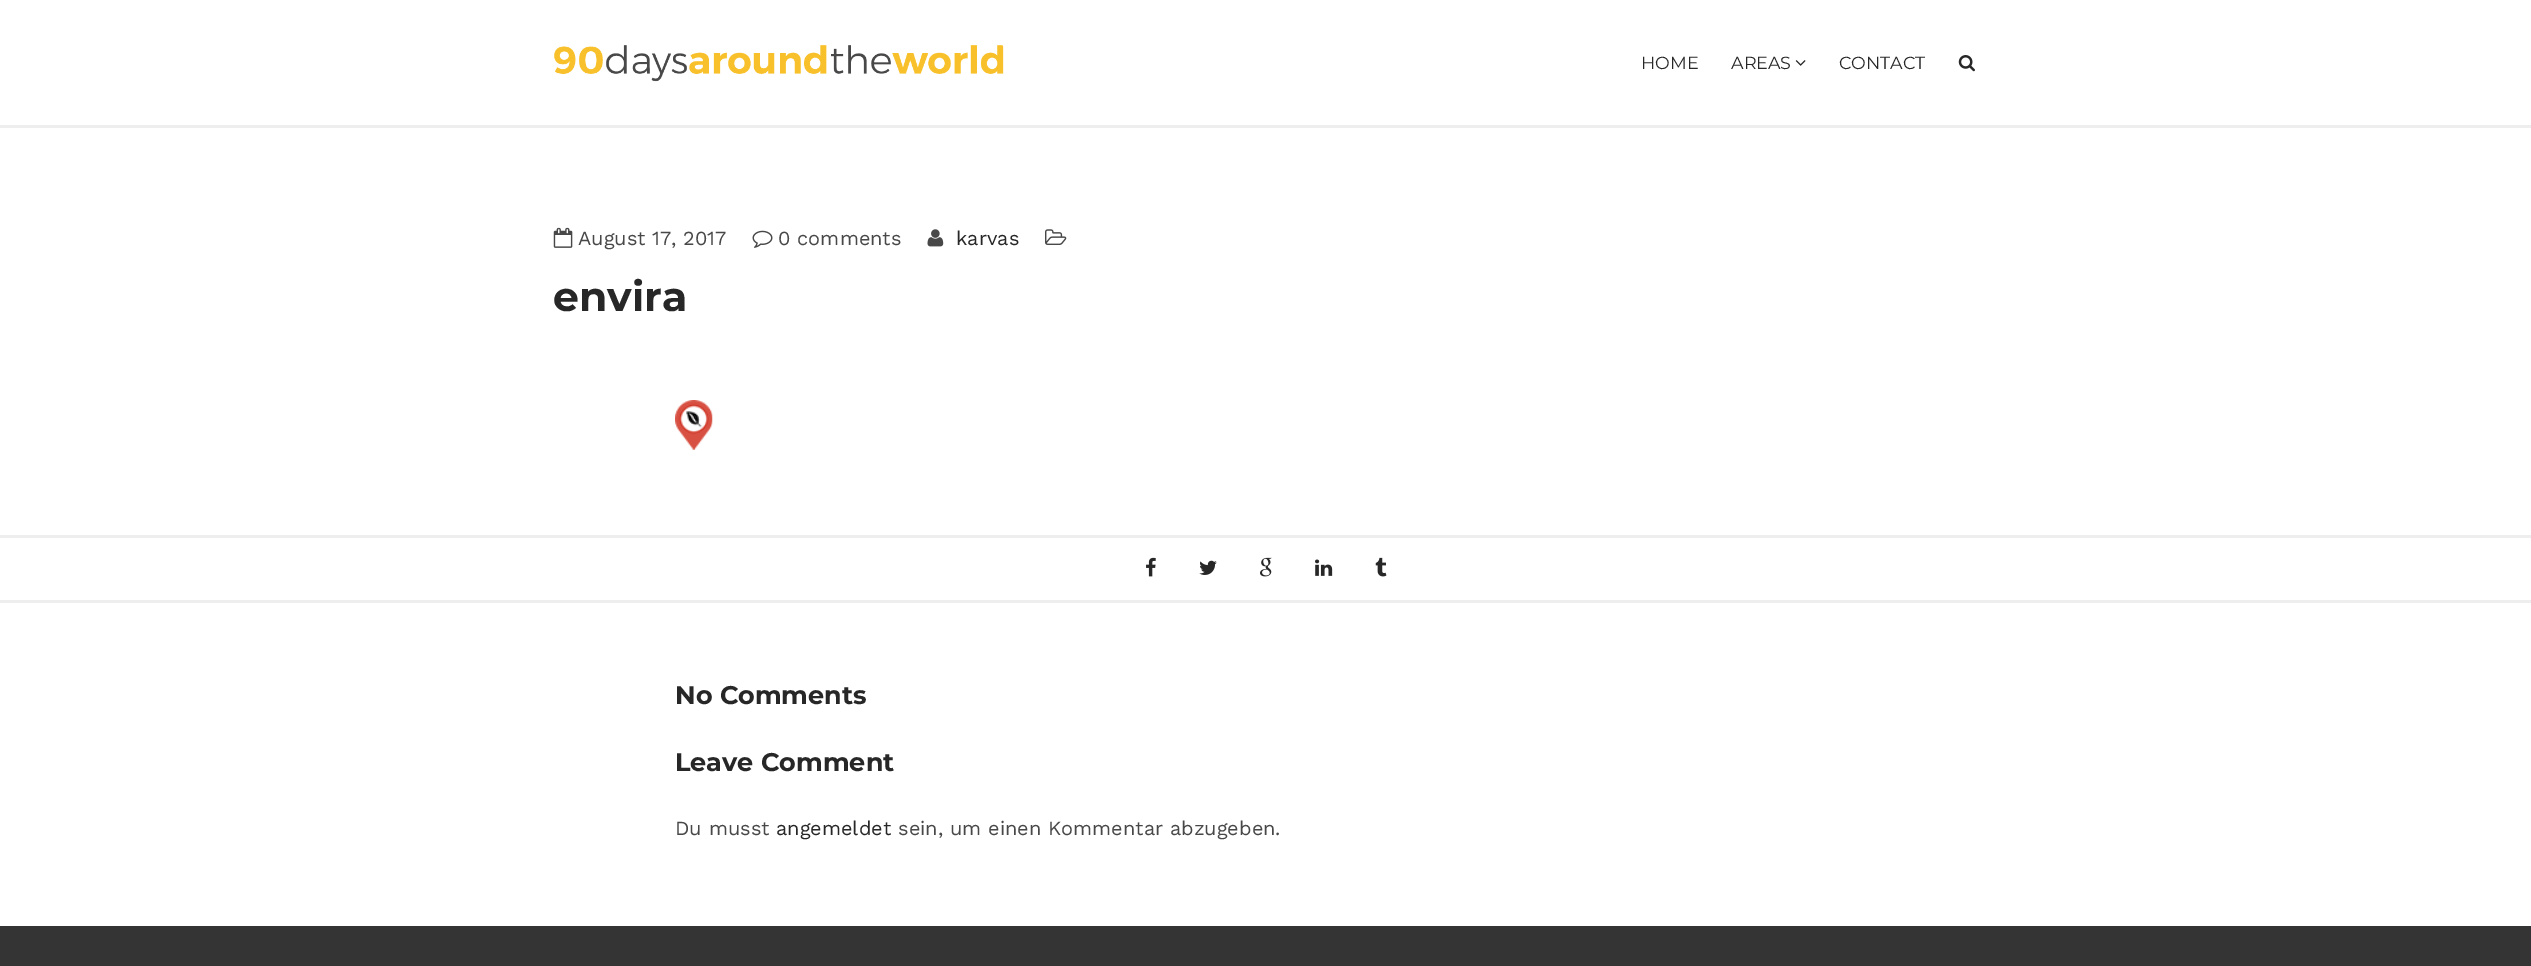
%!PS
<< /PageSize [2531 966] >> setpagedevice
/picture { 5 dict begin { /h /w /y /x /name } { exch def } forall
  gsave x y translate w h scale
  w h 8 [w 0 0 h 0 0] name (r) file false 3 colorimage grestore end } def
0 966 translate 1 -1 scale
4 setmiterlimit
1 setgray
0 0 2531 966 rectfill
(img1.rgb) 554 45 450 37 picture
/Montserrat-Regular [17.5 0 0 -17.5 0 0] selectfont
0.153 setgray
1641 69 moveto (HOME) show
1731 69 moveto (AREAS) show
(img2.rgb) 1795 60 11 6 picture
1839 69 moveto (CONTACT) show
(img3.rgb) 1958 55 17 17 picture
0.933 setgray
0 125 2531 3 rectfill
(img4.rgb) 553 227 20 21 picture
/WorkSans-Regular [20 0 0 -20 0 0] selectfont
0.282 setgray
578 245 moveto (August 17, 2017) show
(img5.rgb) 752 230 21 18 picture
778 245 moveto (0 comments) show
(img6.rgb) 927 229 17 18 picture
0.153 setgray
956 245 moveto (karvas) show
(img7.rgb) 1045 229 22 16 picture
/Montserrat-Bold [41 0 0 -41 0 0] selectfont
553 311 moveto (envira) show
(img8.rgb) 675 400 38 50 picture
0.933 setgray
0 535 2531 3 rectfill
0 600 2531 3 rectfill
(img9.rgb) 1146 557 10 20 picture
(img10.rgb) 1199 560 18 15 picture
(img11.rgb) 1260 557 12 20 picture
(img12.rgb) 1315 559 18 17 picture
(img13.rgb) 1375 557 12 20 picture
/Montserrat-Bold [25.5 0 0 -25.5 0 0] selectfont
0.153 setgray
675 704 moveto (No Comments) show
675 771 moveto (Leave Comment) show
/WorkSans-Regular [20 0 0 -20 0 0] selectfont
0.282 setgray
675 835 moveto (Du musst) show
0.153 setgray
776 835 moveto (angemeldet) show
0.282 setgray
898 835 moveto (sein, um einen Kommentar abzugeben.) show
0.204 setgray
0 926 2531 40 rectfill
showpage
